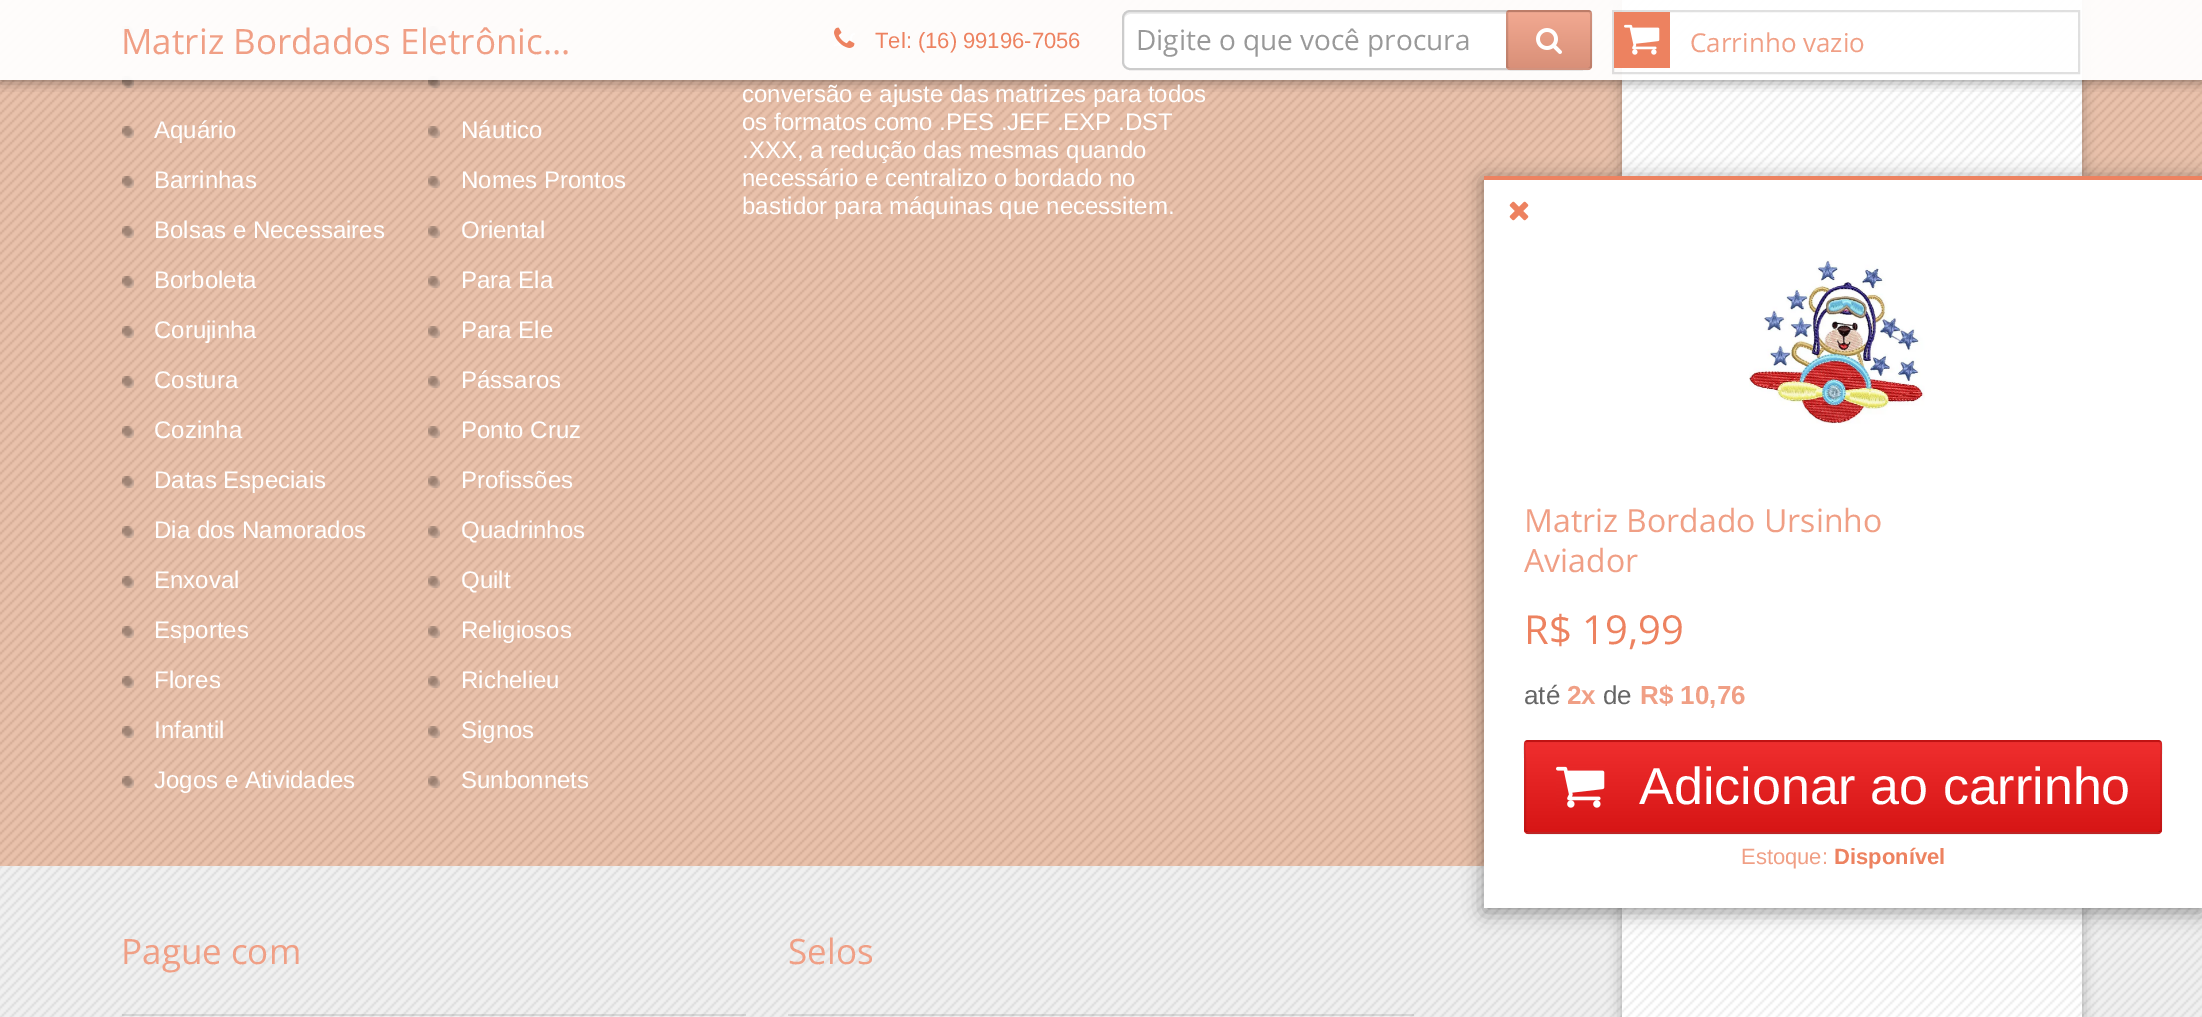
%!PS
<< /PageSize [2202 1017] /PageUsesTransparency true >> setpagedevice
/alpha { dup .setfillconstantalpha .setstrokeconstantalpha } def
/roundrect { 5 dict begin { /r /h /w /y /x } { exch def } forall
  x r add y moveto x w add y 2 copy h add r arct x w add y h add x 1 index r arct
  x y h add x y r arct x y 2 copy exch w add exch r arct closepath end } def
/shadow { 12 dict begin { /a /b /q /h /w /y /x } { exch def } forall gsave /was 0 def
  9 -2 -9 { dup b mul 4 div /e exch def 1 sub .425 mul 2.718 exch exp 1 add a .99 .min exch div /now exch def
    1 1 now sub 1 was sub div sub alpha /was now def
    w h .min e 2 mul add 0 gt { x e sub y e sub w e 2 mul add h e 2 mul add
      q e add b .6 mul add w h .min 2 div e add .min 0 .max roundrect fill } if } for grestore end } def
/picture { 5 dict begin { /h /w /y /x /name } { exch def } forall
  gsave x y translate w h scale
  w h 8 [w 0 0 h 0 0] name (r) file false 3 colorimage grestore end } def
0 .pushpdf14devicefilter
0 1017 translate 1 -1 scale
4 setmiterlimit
0.902 0.729 0.635 setrgbcolor
0 0 2202 1017 rectfill
(img4.rgb) 0 0 2202 866 picture
(img5.rgb) 122 26 12 12 picture
(img6.rgb) 428 26 12 12 picture
(img5.rgb) 122 76 12 12 picture
(img6.rgb) 428 76 12 12 picture
0.933 setgray
0 866 2202 151 rectfill
(img10.rgb) 0 866 2202 151 picture
0 setgray
1622 -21 460 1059 0 7 0.3 shadow
1 setgray
1622 0 460 1017 rectfill
(img9.rgb) 1622 0 460 1017 picture
gsave
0 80 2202 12 rectclip
0 setgray
0 0 2202 80 0 7 0.5 shadow
grestore
0.95 alpha
0 0 2202 80 rectfill
/OpenSans-Regular [35 0 0 -35 0 0] selectfont
1 alpha
0.941 0.624 0.522 setrgbcolor
121 54 moveto (Matriz Bordados Eletrônic…) show
(img1.rgb) 834 27 21 21 picture
/LiberationSans-Regular [22 0 0 -22 0 0] selectfont
0.929 0.51 0.376 setrgbcolor
875 48 moveto (Tel: \(16\) 99196-7056) show
1 setgray
1122 10 468 60 8 roundrect fill
0.925 setgray
newpath 1130 14 moveto 1582 14 lineto 1585 14 1588 17 1588 20 curveto 1588 16 1587 12 1582 12 curveto 1130 12 lineto 1125 12 1124 16 1124 20 curveto 1124 17 1127 14 1130 14 curveto closepath fill
0.8 setgray
2 setlinewidth
1123 11 466 58 7 roundrect stroke
/OpenSans-Regular [28 0 0 -28 0 0] selectfont
0.6 setgray
1136 50 moveto (Digite o que você procura) show
0.941 0.624 0.522 setrgbcolor
1506 10 86 60 4 roundrect fill
gsave
1506 10 86 60 4 roundrect clip newpath
0.1 alpha
gsave newpath 1506 10 moveto 1592 10 lineto 1592 12 lineto 1506 12 lineto closepath clip newpath
<< /ShadingType 2 /ColorSpace /DeviceRGB /Coords [1549 -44 1549 12] /Extend [true true] /Function << /FunctionType 2 /Domain [0 1] /C0 [1 1 1] /C1 [0 0 0] /N 1 >> >> shfill grestore
grestore
0.1 alpha
gsave newpath 1506 12 moveto 1592 12 lineto 1592 68 lineto 1506 68 lineto closepath clip newpath
<< /ShadingType 2 /ColorSpace /DeviceRGB /Coords [1549 12 1549 68] /Extend [true true] /Function << /FunctionType 2 /Domain [0 1] /C0 [1 1 1] /C1 [0 0 0] /N 1 >> >> shfill grestore
gsave
1506 10 86 60 4 roundrect clip newpath
gsave newpath 1506 68 moveto 1592 68 lineto 1592 70 lineto 1506 70 lineto closepath clip newpath
<< /ShadingType 2 /ColorSpace /DeviceRGB /Coords [1549 68 1549 124] /Extend [true true] /Function << /FunctionType 2 /Domain [0 1] /C0 [1 1 1] /C1 [0 0 0] /N 1 >> >> shfill grestore
grestore
0.13 alpha
0 setgray
1507 11 84 58 3 roundrect stroke
1 alpha
(img2.rgb) 1536 28 26 26 picture
0.12 alpha
1613 11 466 62 rectstroke
1 alpha
0.929 0.51 0.376 setrgbcolor
1614 12 56 56 rectfill
(img3.rgb) 1624 24 36 31 picture
/OpenSans-Regular [26 0 0 -26 0 0] selectfont
0.941 0.624 0.522 setrgbcolor
1690 52 moveto (Carrinho vazio) show
(img5.rgb) 122 126 12 12 picture
/LiberationSans-Regular [24 0 0 -24 0 0] selectfont
1 setgray
154 138 moveto (Aquário) show
(img6.rgb) 428 126 12 12 picture
461 138 moveto (Náutico) show
(img7.rgb) 122 176 12 12 picture
154 188 moveto (Barrinhas) show
(img8.rgb) 428 176 12 12 picture
461 188 moveto (Nomes Prontos) show
(img7.rgb) 122 226 12 12 picture
154 238 moveto (Bolsas e Necessaires) show
(img8.rgb) 428 226 12 12 picture
461 238 moveto (Oriental) show
(img7.rgb) 122 276 12 12 picture
154 288 moveto (Borboleta) show
(img8.rgb) 428 276 12 12 picture
461 288 moveto (Para Ela) show
(img7.rgb) 122 326 12 12 picture
154 338 moveto (Corujinha) show
(img8.rgb) 428 326 12 12 picture
461 338 moveto (Para Ele) show
(img7.rgb) 122 376 12 12 picture
154 388 moveto (Costura) show
(img8.rgb) 428 376 12 12 picture
461 388 moveto (Pássaros) show
(img7.rgb) 122 426 12 12 picture
154 438 moveto (Cozinha) show
(img8.rgb) 428 426 12 12 picture
461 438 moveto (Ponto Cruz) show
(img7.rgb) 122 476 12 12 picture
154 488 moveto (Datas Especiais) show
(img8.rgb) 428 476 12 12 picture
461 488 moveto (Profissões) show
(img7.rgb) 122 526 12 12 picture
154 538 moveto (Dia dos Namorados) show
(img8.rgb) 428 526 12 12 picture
461 538 moveto (Quadrinhos) show
(img7.rgb) 122 576 12 12 picture
154 588 moveto (Enxoval) show
(img8.rgb) 428 576 12 12 picture
461 588 moveto (Quilt) show
(img7.rgb) 122 626 12 12 picture
154 638 moveto (Esportes) show
(img8.rgb) 428 626 12 12 picture
461 638 moveto (Religiosos) show
(img7.rgb) 122 676 12 12 picture
154 688 moveto (Flores) show
(img8.rgb) 428 676 12 12 picture
461 688 moveto (Richelieu) show
(img7.rgb) 122 726 12 12 picture
154 738 moveto (Infantil) show
(img8.rgb) 428 726 12 12 picture
461 738 moveto (Signos) show
(img7.rgb) 122 776 12 12 picture
154 788 moveto (Jogos e Atividades) show
(img8.rgb) 428 776 12 12 picture
461 788 moveto (Sunbonnets) show
742 102 moveto (conversão e ajuste das matrizes para todos) show
742 130 moveto (os formatos como .PES .JEF .EXP .DST) show
742 158 moveto (.XXX, a redução das mesmas quando) show
742 186 moveto (necessário e centralizo o bordado no) show
742 214 moveto (bastidor para máquinas que necessitem.) show
0.1 alpha
0 setgray
122 1014 624 2 rectfill
/OpenSans-Regular [35 0 0 -35 0 0] selectfont
1 alpha
0.941 0.624 0.522 setrgbcolor
121 964 moveto (Pague com) show
0.1 alpha
0 setgray
788 1014 626 2 rectfill
1 alpha
0.941 0.624 0.522 setrgbcolor
788 964 moveto (Selos) show
0 setgray
1484 180 718 732 0 10 0.4 shadow
1 setgray
1484 180 718 728 rectfill
0.929 0.51 0.376 setrgbcolor
1484 176 718 4 rectfill
(img11.rgb) 1509 201 20 20 picture
(img12.rgb) 1749 260 176 164 picture
/OpenSans-Regular [32 0 0 -32 0 0] selectfont
0.941 0.624 0.522 setrgbcolor
1524 532 moveto (Matriz Bordado Ursinho) show
1524 572 moveto (Aviador) show
/OpenSans-Regular [40 0 0 -40 0 0] selectfont
0.929 0.51 0.376 setrgbcolor
1524 644 moveto (R$ 19,99) show
/LiberationSans-Regular [26 0 0 -26 0 0] selectfont
0.4 setgray
1524 704 moveto (até) show
/LiberationSans-Bold [26 0 0 -26 0 0] selectfont
0.941 0.624 0.522 setrgbcolor
1567 704 moveto (2x) show
/LiberationSans-Regular [26 0 0 -26 0 0] selectfont
0.4 setgray
1603 704 moveto (de) show
/LiberationSans-Bold [26 0 0 -26 0 0] selectfont
0.941 0.624 0.522 setrgbcolor
1640 704 moveto (R$ 10,76) show
0.929 0.09 0.09 setrgbcolor
1524 740 638 94 4 roundrect fill
gsave
1524 740 638 94 4 roundrect clip newpath
0.1 alpha
gsave newpath 1524 740 moveto 2162 740 lineto 2162 742 lineto 1524 742 lineto closepath clip newpath
<< /ShadingType 2 /ColorSpace /DeviceRGB /Coords [1843 652 1843 742] /Extend [true true] /Function << /FunctionType 2 /Domain [0 1] /C0 [1 1 1] /C1 [0 0 0] /N 1 >> >> shfill grestore
grestore
0.1 alpha
gsave newpath 1524 742 moveto 2162 742 lineto 2162 832 lineto 1524 832 lineto closepath clip newpath
<< /ShadingType 2 /ColorSpace /DeviceRGB /Coords [1843 742 1843 832] /Extend [true true] /Function << /FunctionType 2 /Domain [0 1] /C0 [1 1 1] /C1 [0 0 0] /N 1 >> >> shfill grestore
gsave
1524 740 638 94 4 roundrect clip newpath
gsave newpath 1524 832 moveto 2162 832 lineto 2162 834 lineto 1524 834 lineto closepath clip newpath
<< /ShadingType 2 /ColorSpace /DeviceRGB /Coords [1843 832 1843 922] /Extend [true true] /Function << /FunctionType 2 /Domain [0 1] /C0 [1 1 1] /C1 [0 0 0] /N 1 >> >> shfill grestore
grestore
0.2 alpha
0 setgray
newpath 2160 832 moveto 2158 833 lineto 1528 833 lineto 1526 832 lineto stroke
0.1 alpha
newpath 1526 832 moveto 1525 830 lineto 1525 758.5 lineto 1525 752 1522.5 741 1528 741 curveto 2158 741 lineto 2163.5 741 2161 752 2161 758.5 curveto 2161 830 lineto 2160 832 lineto stroke
1 alpha
(img13.rgb) 1556 766 49 42 picture
/LiberationSans-Regular [52 0 0 -52 0 0] selectfont
1 setgray
1639 804 moveto (Adicionar ao carrinho) show
/LiberationSans-Regular [22 0 0 -22 0 0] selectfont
0.941 0.624 0.522 setrgbcolor
1741 864 moveto (Estoque:) show
/LiberationSans-Bold [22 0 0 -22 0 0] selectfont
0.929 0.51 0.376 setrgbcolor
1834 864 moveto (Disponível) show
.poppdf14devicefilter showpage
